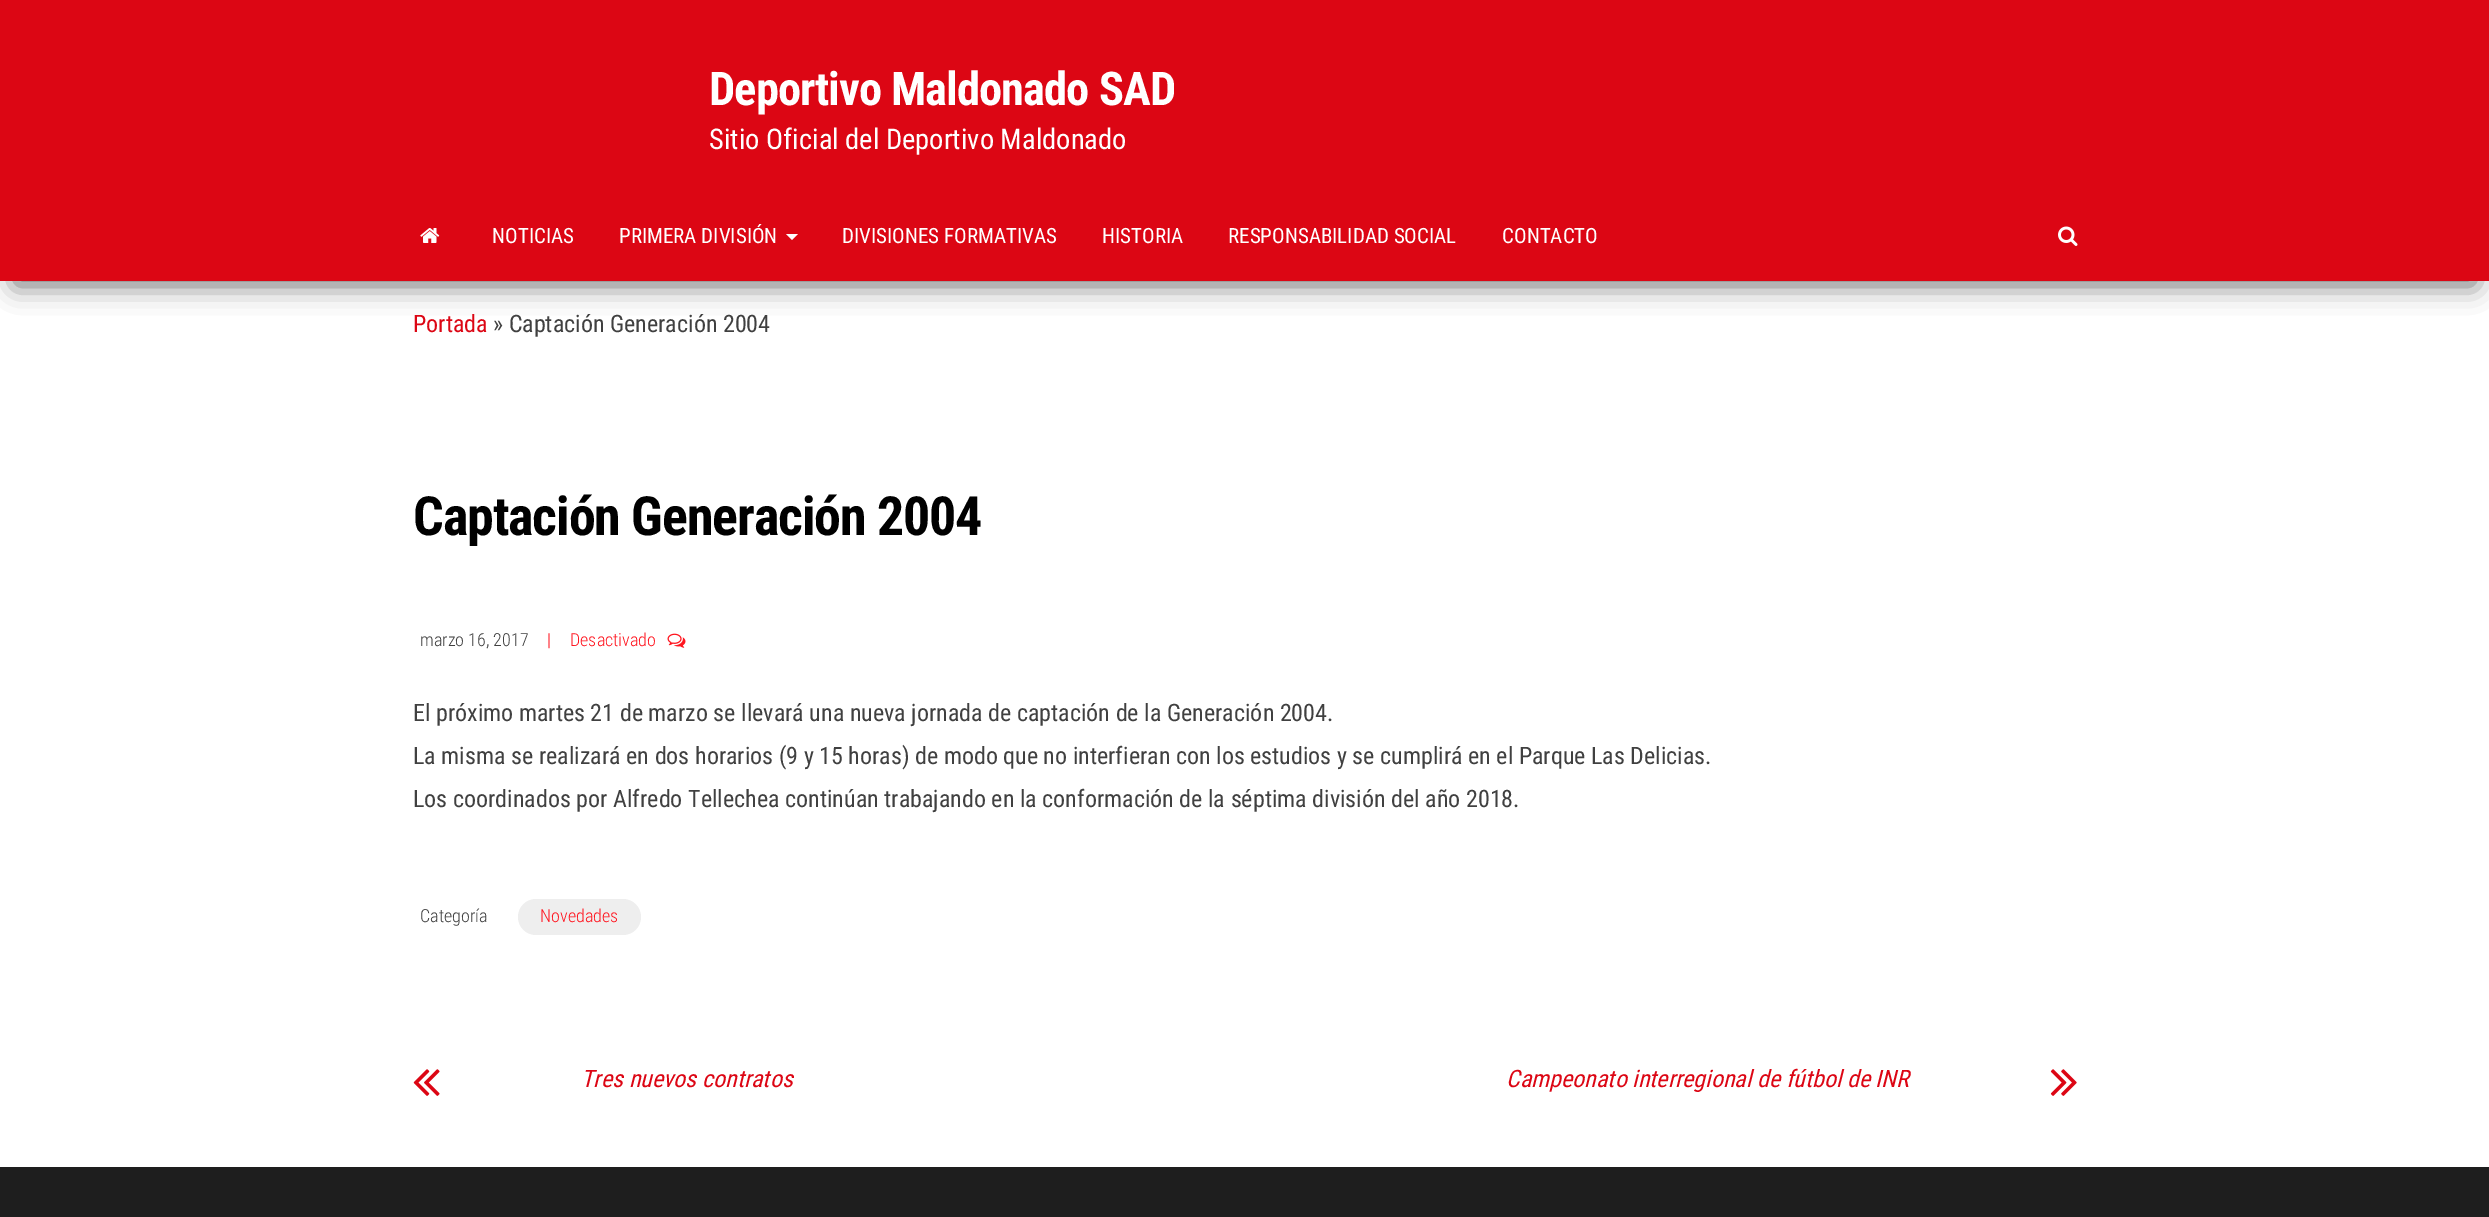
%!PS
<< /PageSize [2489 1217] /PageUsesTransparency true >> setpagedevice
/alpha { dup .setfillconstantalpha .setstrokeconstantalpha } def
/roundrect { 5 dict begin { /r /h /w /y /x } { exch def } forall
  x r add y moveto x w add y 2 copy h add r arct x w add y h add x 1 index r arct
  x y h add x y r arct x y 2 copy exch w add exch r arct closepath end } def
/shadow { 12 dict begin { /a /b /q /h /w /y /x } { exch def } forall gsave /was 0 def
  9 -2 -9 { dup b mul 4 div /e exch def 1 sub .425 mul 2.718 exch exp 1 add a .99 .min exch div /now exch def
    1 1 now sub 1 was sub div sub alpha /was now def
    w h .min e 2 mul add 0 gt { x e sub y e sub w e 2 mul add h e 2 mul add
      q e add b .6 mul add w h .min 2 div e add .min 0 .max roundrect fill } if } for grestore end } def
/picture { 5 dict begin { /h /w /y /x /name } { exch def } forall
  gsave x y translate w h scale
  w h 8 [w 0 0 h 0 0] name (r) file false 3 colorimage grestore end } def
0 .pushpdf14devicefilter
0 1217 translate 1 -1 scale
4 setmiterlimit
1 setgray
0 0 2489 1217 rectfill
0.863 0.024 0.078 setrgbcolor
0 0 2489 191 rectfill
/RobotoCondensed-Bold [46.5 0 0 -46.5 0 0] selectfont
1 setgray
709 105 moveto -0.9 0 (Deportivo Maldonado SAD) ashow
/RobotoCondensed-Regular [28.5 0 0 -28.5 0 0] selectfont
709 149 moveto (Sitio Oficial del Deportivo Maldonado) show
0 setgray
15 225 2460 60 0 13.5 0.6 shadow
0.863 0.024 0.078 setrgbcolor
0 191 2489 90 rectfill
(img1.rgb) 420 228 20 15 picture
/RobotoCondensed-Regular [21 0 0 -21 0 0] selectfont
1 setgray
492 243 moveto (NOTICIAS) show
619 243 moveto (PRIMERA DIVISIÓN) show
newpath 786 234 moveto 798 234 lineto 792 240 lineto closepath fill
842 243 moveto (DIVISIONES FORMATIVAS) show
1102 243 moveto (HISTORIA) show
1228 243 moveto (RESPONSABILIDAD SOCIAL) show
1502 243 moveto (CONTACTO) show
(img2.rgb) 2058 226 20 20 picture
/RobotoCondensed-Regular [24 0 0 -24 0 0] selectfont
0.863 0.024 0.078 setrgbcolor
413 332 moveto (Portada) show
0.251 setgray
493 332 moveto (» Captación Generación 2004) show
/RobotoCondensed-Bold [54 0 0 -54 0 0] selectfont
0 setgray
413 535 moveto -1.1 0 (Captación Generación 2004) ashow
/RobotoCondensed-Light [18 0 0 -18 0 0] selectfont
0.251 setgray
420 646 moveto (marzo 16, 2017) show
1 0.082 0.122 setrgbcolor
547 646 moveto (|) show
570 646 moveto (Desactivado) show
(img3.rgb) 667 633 19 15 picture
/RobotoCondensed-Regular [24 0 0 -24 0 0] selectfont
0.251 setgray
413 721 moveto (El próximo martes 21 de marzo se llevará una nueva jornada de captación de la Generación 2004.) show
413 764 moveto (La misma se realizará en dos horarios \(9 y 15 horas\) de modo que no interfieran con los estudios y se cumplirá en el Parque Las Delicias.) show
413 807 moveto (Los coordinados por Alfredo Tellechea continúan trabajando en la conformación de la séptima división del año 2018.) show
/RobotoCondensed-Light [18 0 0 -18 0 0] selectfont
420 922 moveto (Categoría) show
0.933 setgray
518 899 123 36 18 roundrect fill
1 0.082 0.122 setrgbcolor
540 922 moveto (Novedades) show
(img4.rgb) 413 1069 27 27 picture
/RobotoCondensed-Italic [24 0 0 -24 0 0] selectfont
0.863 0.024 0.078 setrgbcolor
581 1087 moveto (Tres nuevos contratos) show
1506 1087 moveto (Campeonato interregional de fútbol de INR) show
(img5.rgb) 2050 1069 27 27 picture
0.118 setgray
0 1167 2489 50 rectfill
.poppdf14devicefilter showpage
